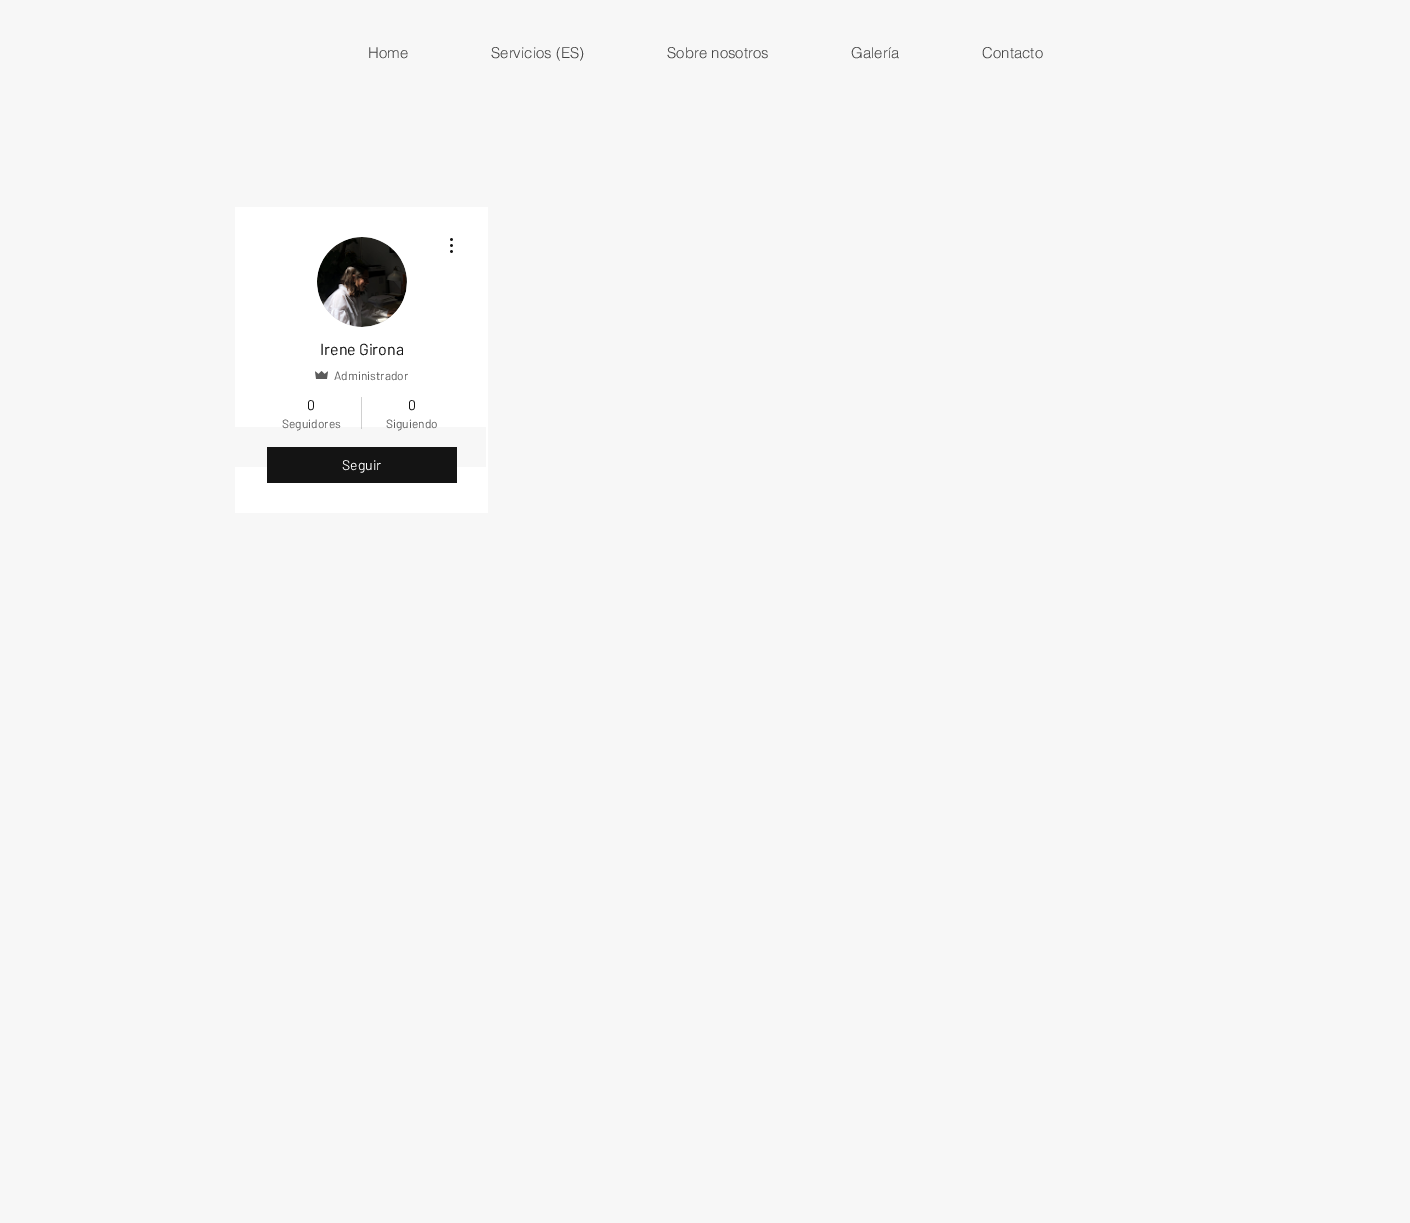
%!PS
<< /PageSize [1410 1223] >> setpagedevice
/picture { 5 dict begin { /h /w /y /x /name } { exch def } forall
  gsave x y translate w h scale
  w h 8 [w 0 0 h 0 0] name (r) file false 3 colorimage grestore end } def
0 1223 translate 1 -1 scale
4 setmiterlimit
0.969 setgray
0 0 1410 1223 rectfill
/helvetica-Light [15 0 0 -15 0 0] selectfont
0.267 setgray
368 58 moveto (Home) show
491 58 moveto (Servicios \(ES\)) show
667 58 moveto (Sobre nosotros) show
851 58 moveto (Galería) show
982 58 moveto (Contacto) show
1 setgray
235 207 253 306 rectfill
0.816 setgray
361 397 1 32 rectfill
0.847 setgray
newpath 362 282 45 0 360 arc closepath fill
(img1.rgb) 317 237 90 90 picture
(img2.rgb) 450 238 3 15 picture
/Barlow-Regular [16 0 0 -16 0 0] selectfont
0.078 setgray
320 355 moveto (Irene Girona) show
(img3.rgb) 315 371 13 8 picture
/Barlow-Regular [12 0 0 -12 0 0] selectfont
0.357 setgray
334 380 moveto (Administrador) show
/Barlow-Regular [14 0 0 -14 0 0] selectfont
0.078 setgray
307 410 moveto (0) show
0.969 setgray
235 427 251 40 rectfill
/Barlow-Regular [12 0 0 -12 0 0] selectfont
0.357 setgray
282 428 moveto (Seguidores) show
/Barlow-Regular [14 0 0 -14 0 0] selectfont
0.078 setgray
408 410 moveto (0) show
/Barlow-Regular [12 0 0 -12 0 0] selectfont
0.357 setgray
386 428 moveto (Siguiendo) show
0.078 setgray
267 447 190 36 rectfill
/Barlow-Regular [14 0 0 -14 0 0] selectfont
1 setgray
342 470 moveto (Seguir) show
0.792 setgray
361 427 1 2 rectfill
showpage
